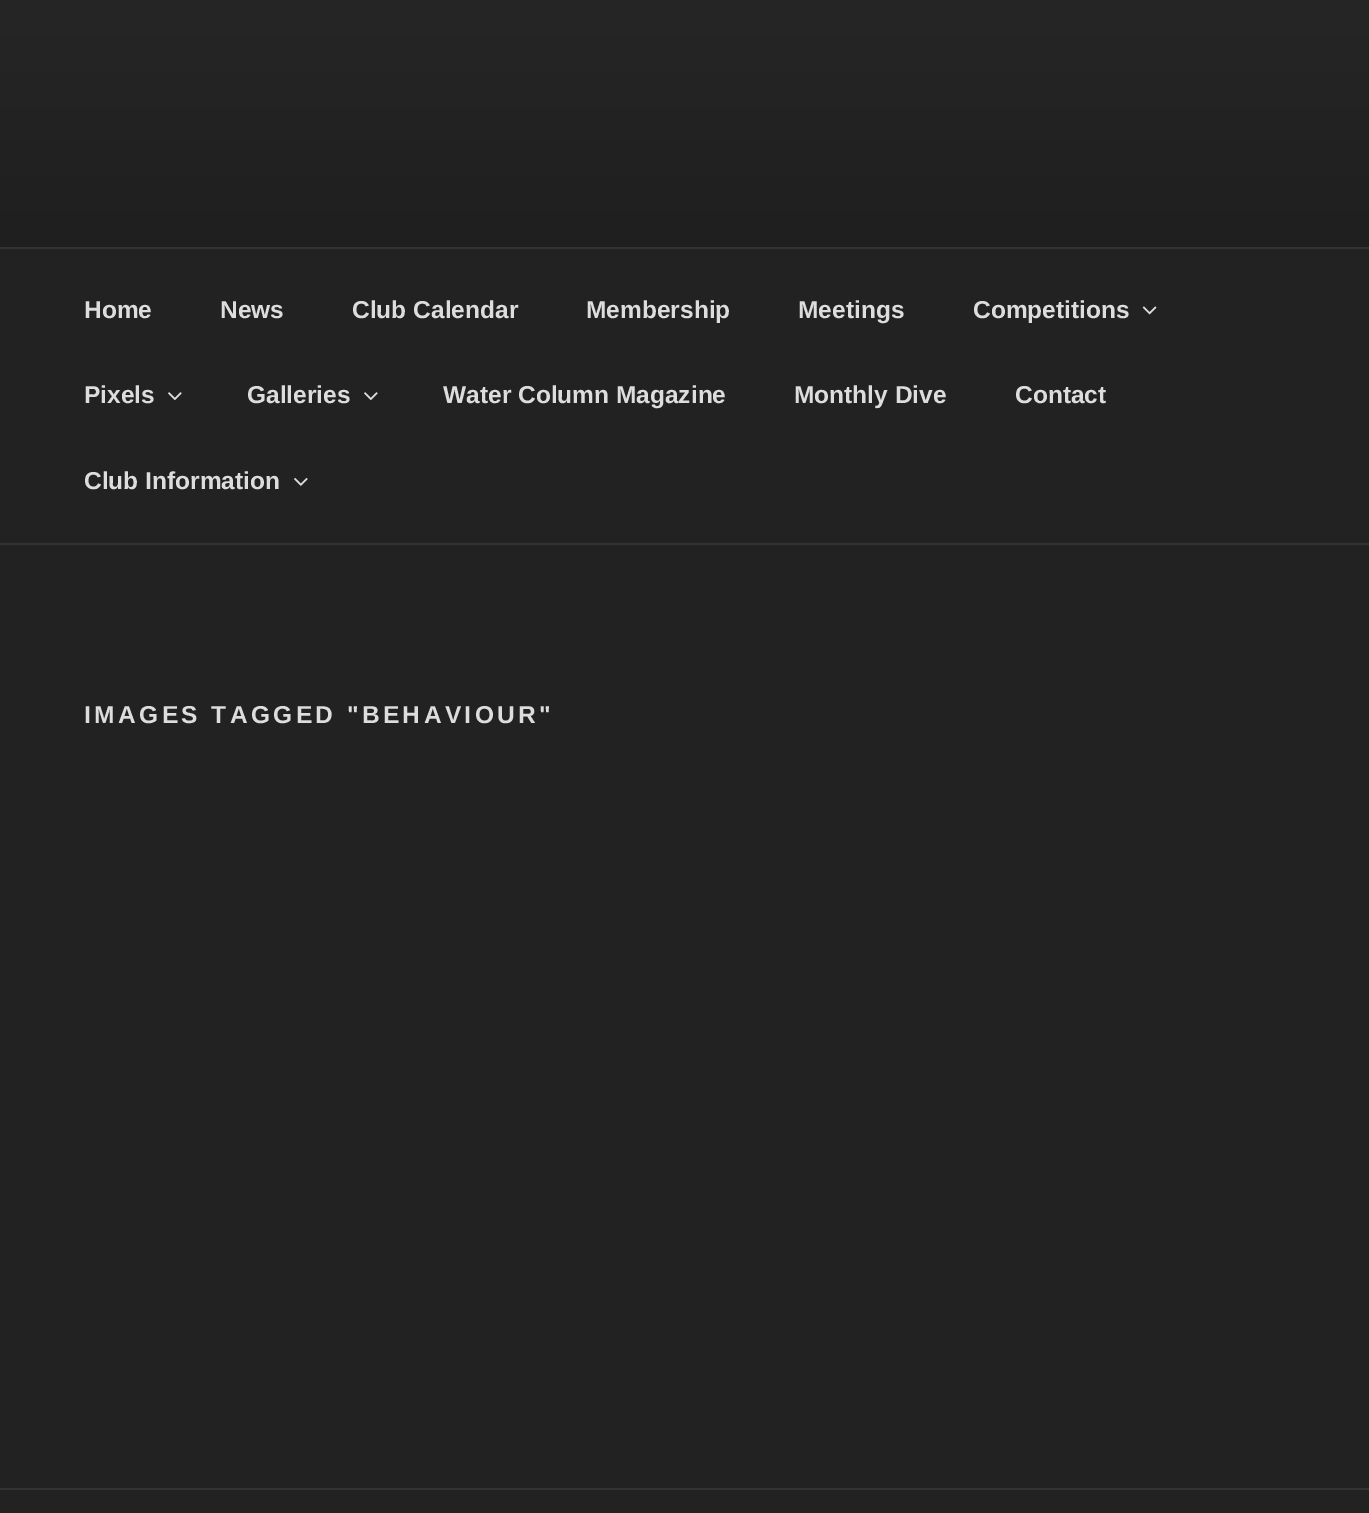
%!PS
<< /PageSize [1369 1513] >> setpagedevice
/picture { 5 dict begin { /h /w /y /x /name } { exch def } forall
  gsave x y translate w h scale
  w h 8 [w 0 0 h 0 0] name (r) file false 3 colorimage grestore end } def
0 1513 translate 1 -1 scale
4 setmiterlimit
0.133 setgray
0 0 1369 1513 rectfill
gsave newpath 0 0 moveto 1369 0 lineto 1369 247 lineto 0 247 lineto closepath clip newpath
<< /ShadingType 2 /ColorSpace /DeviceRGB /Coords [685 0 685 544] /Extend [true true] /Function << /FunctionType 3 /Domain [0 1] /Functions [<< /FunctionType 2 /Domain [0 1] /C0 [0.149 0.149 0.149] /C1 [0.106 0.106 0.106] /N 1 >> << /FunctionType 2 /Domain [0 1] /C0 [0.106 0.106 0.106] /C1 [0.106 0.106 0.106] /N 1 >>] /Bounds [0.75] /Encode [0 1 0 1] >> >> shfill grestore
0.2 setgray
0 247 1369 2 rectfill
0 543 1369 2 rectfill
/LiberationSans-Bold [24.5 0 0 -24.5 0 0] selectfont
0.867 setgray
84 318 moveto (Home) show
220 318 moveto (News) show
352 318 moveto (Club Calendar) show
586 318 moveto (Membership) show
798 318 moveto (Meetings) show
973 318 moveto (Competitions) show
(img1.rgb) 1142 306 15 9 picture
84 403 moveto (Pixels) show
(img2.rgb) 168 392 14 9 picture
247 403 moveto (Galleries) show
(img2.rgb) 364 392 14 9 picture
443 403 moveto (Water Column Magazine) show
794 403 moveto (Monthly Dive) show
1015 403 moveto (Contact) show
84 489 moveto (Club Information) show
(img3.rgb) 294 478 14 8 picture
84 723 moveto 3.4 0 (IMAGES TAGGED "BEHAVIOUR") ashow
0.2 setgray
0 1488 1369 2 rectfill
showpage
